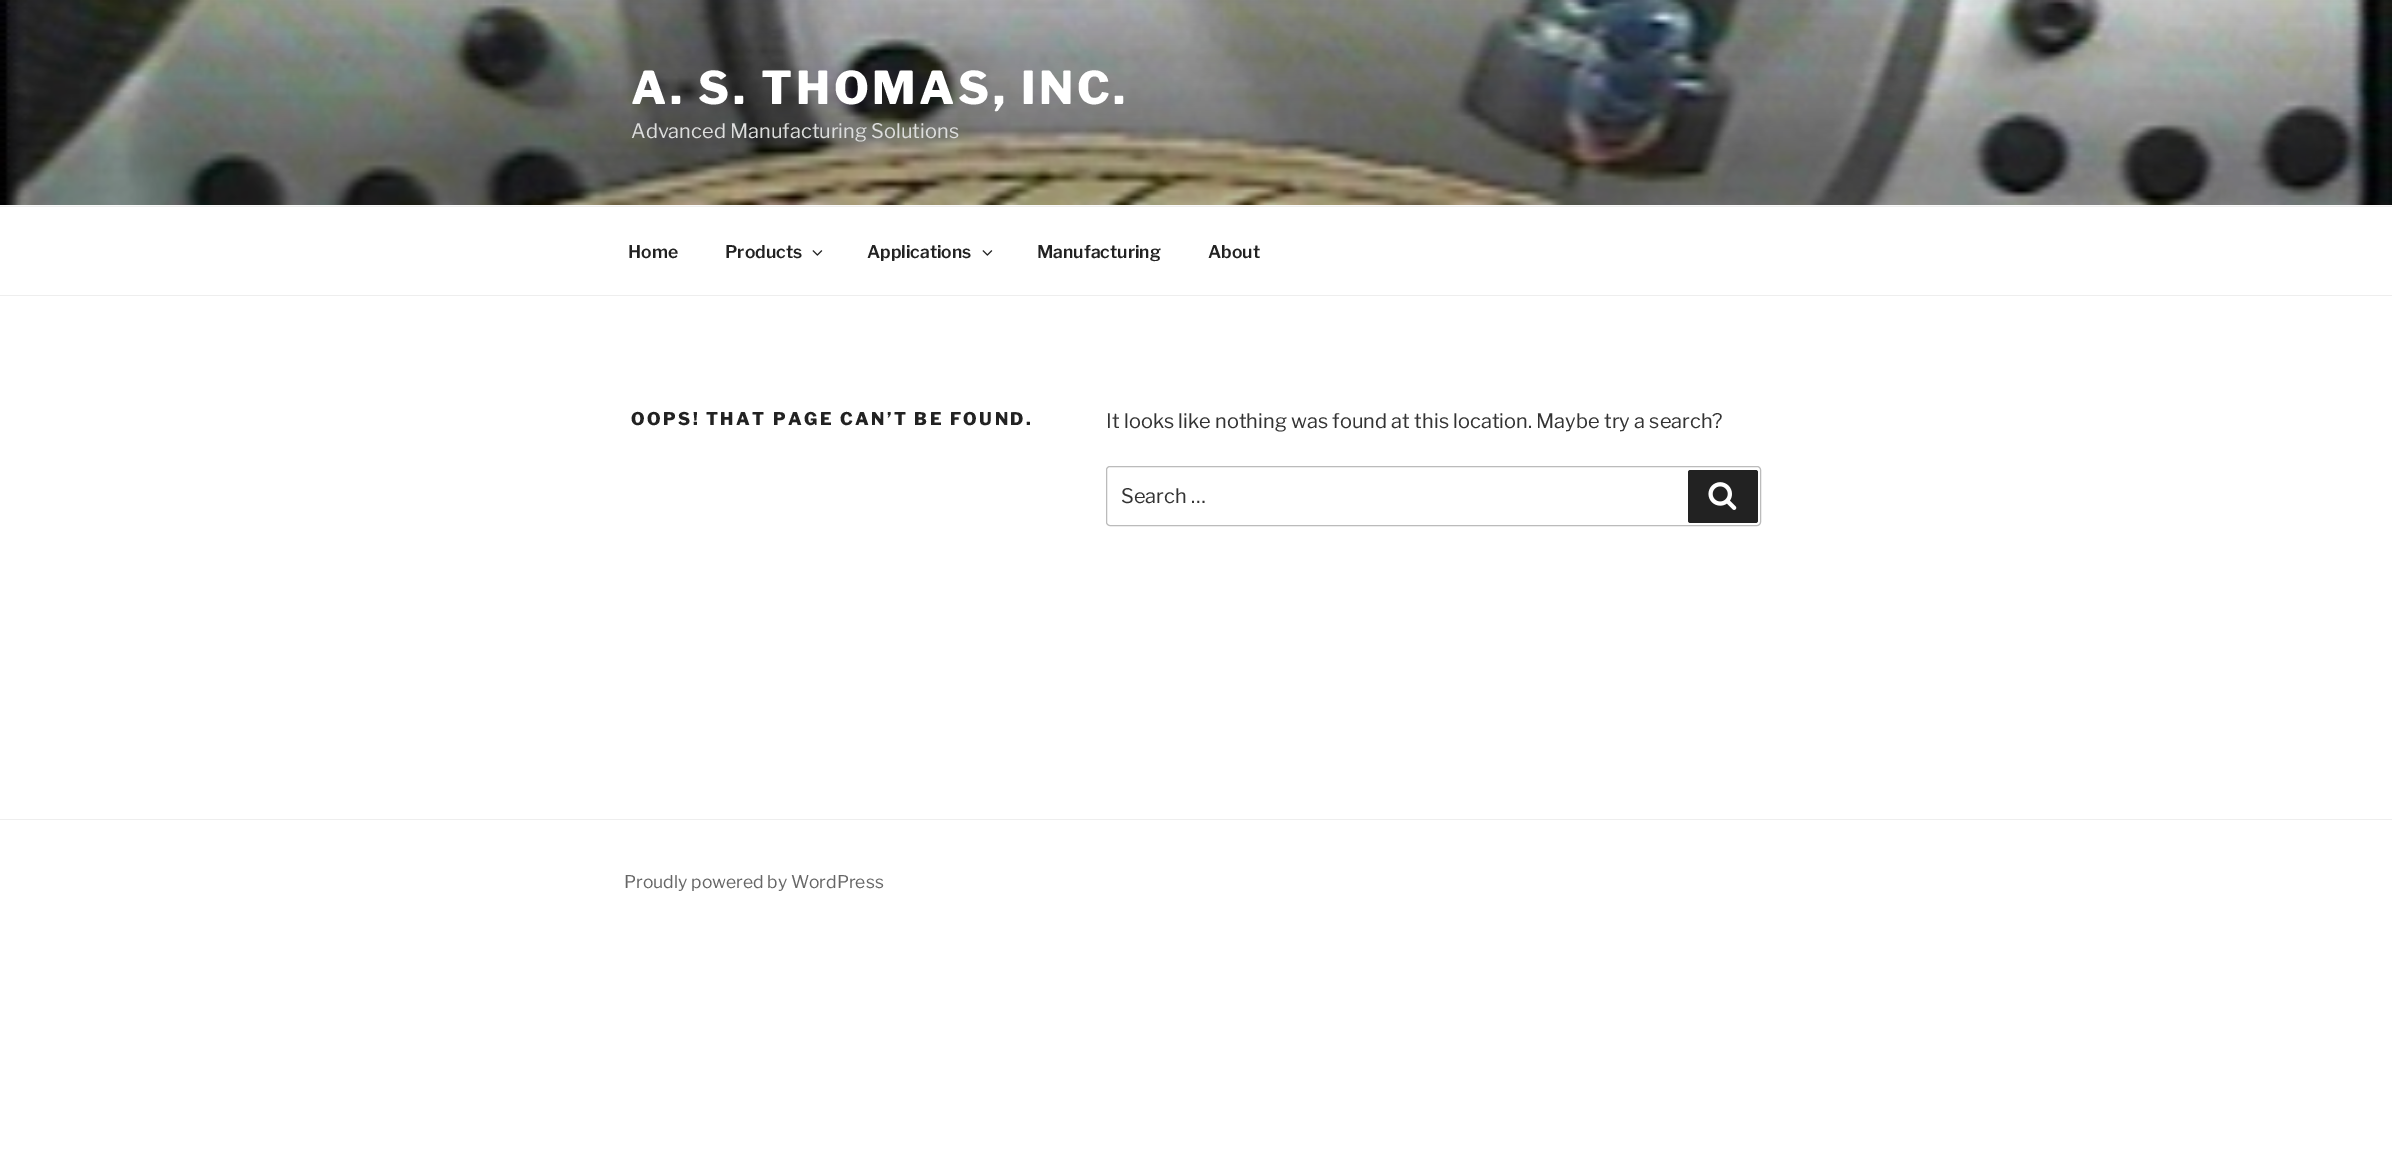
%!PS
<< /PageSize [2392 1172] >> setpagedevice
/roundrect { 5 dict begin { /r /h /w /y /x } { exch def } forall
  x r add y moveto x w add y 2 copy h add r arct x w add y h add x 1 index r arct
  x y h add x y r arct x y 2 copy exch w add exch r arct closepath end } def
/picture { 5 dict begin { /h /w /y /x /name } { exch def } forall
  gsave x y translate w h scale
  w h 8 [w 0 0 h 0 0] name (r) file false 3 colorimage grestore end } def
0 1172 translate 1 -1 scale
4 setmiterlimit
1 setgray
0 0 2392 1172 rectfill
0.98 setgray
0 205 2392 1 rectfill
(img1.rgb) 0 0 2392 205 picture
/LibreFranklin-Thin [45 0 0 -45 0 0] selectfont
1 setgray
631 104 moveto 3.6 0 (A. S. THOMAS, INC.) ashow
/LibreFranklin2-Thin [20 0 0 -20 0 0] selectfont
0.867 0.871 0.867 setrgbcolor
631 138 moveto (Advanced Manufacturing Solutions) show
0.933 setgray
0 206 2392 1 rectfill
0 295 2392 1 rectfill
/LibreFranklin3-Thin [17.5 0 0 -17.5 0 0] selectfont
0.133 setgray
628 258 moveto (Home) show
725 258 moveto (Products) show
(img2.rgb) 812 250 11 6 picture
867 258 moveto (Applications) show
(img2.rgb) 982 250 11 6 picture
1037 258 moveto (Manufacturing) show
1208 258 moveto (About) show
/LibreFranklin-Thin [17.5 0 0 -17.5 0 0] selectfont
631 425 moveto 2.45 0 (OOPS! THAT PAGE CAN’T BE FOUND.) ashow
/LibreFranklin2-Thin [20 0 0 -20 0 0] selectfont
0.2 setgray
1106 428 moveto (It looks like nothing was found at this location. Maybe try a search?) show
0.733 setgray
1106.5 466.5 654 59 3.5 roundrect stroke
0.2 setgray
1121 503 moveto (Search …) show
0.133 setgray
1688 470 70 53 2.5 roundrect fill
(img3.rgb) 1708 482 29 28 picture
0.933 setgray
0 819 2392 1 rectfill
/LibreFranklin2-Thin [17.5 0 0 -17.5 0 0] selectfont
0.4 setgray
624 888 moveto (Proudly powered by WordPress) show
showpage
